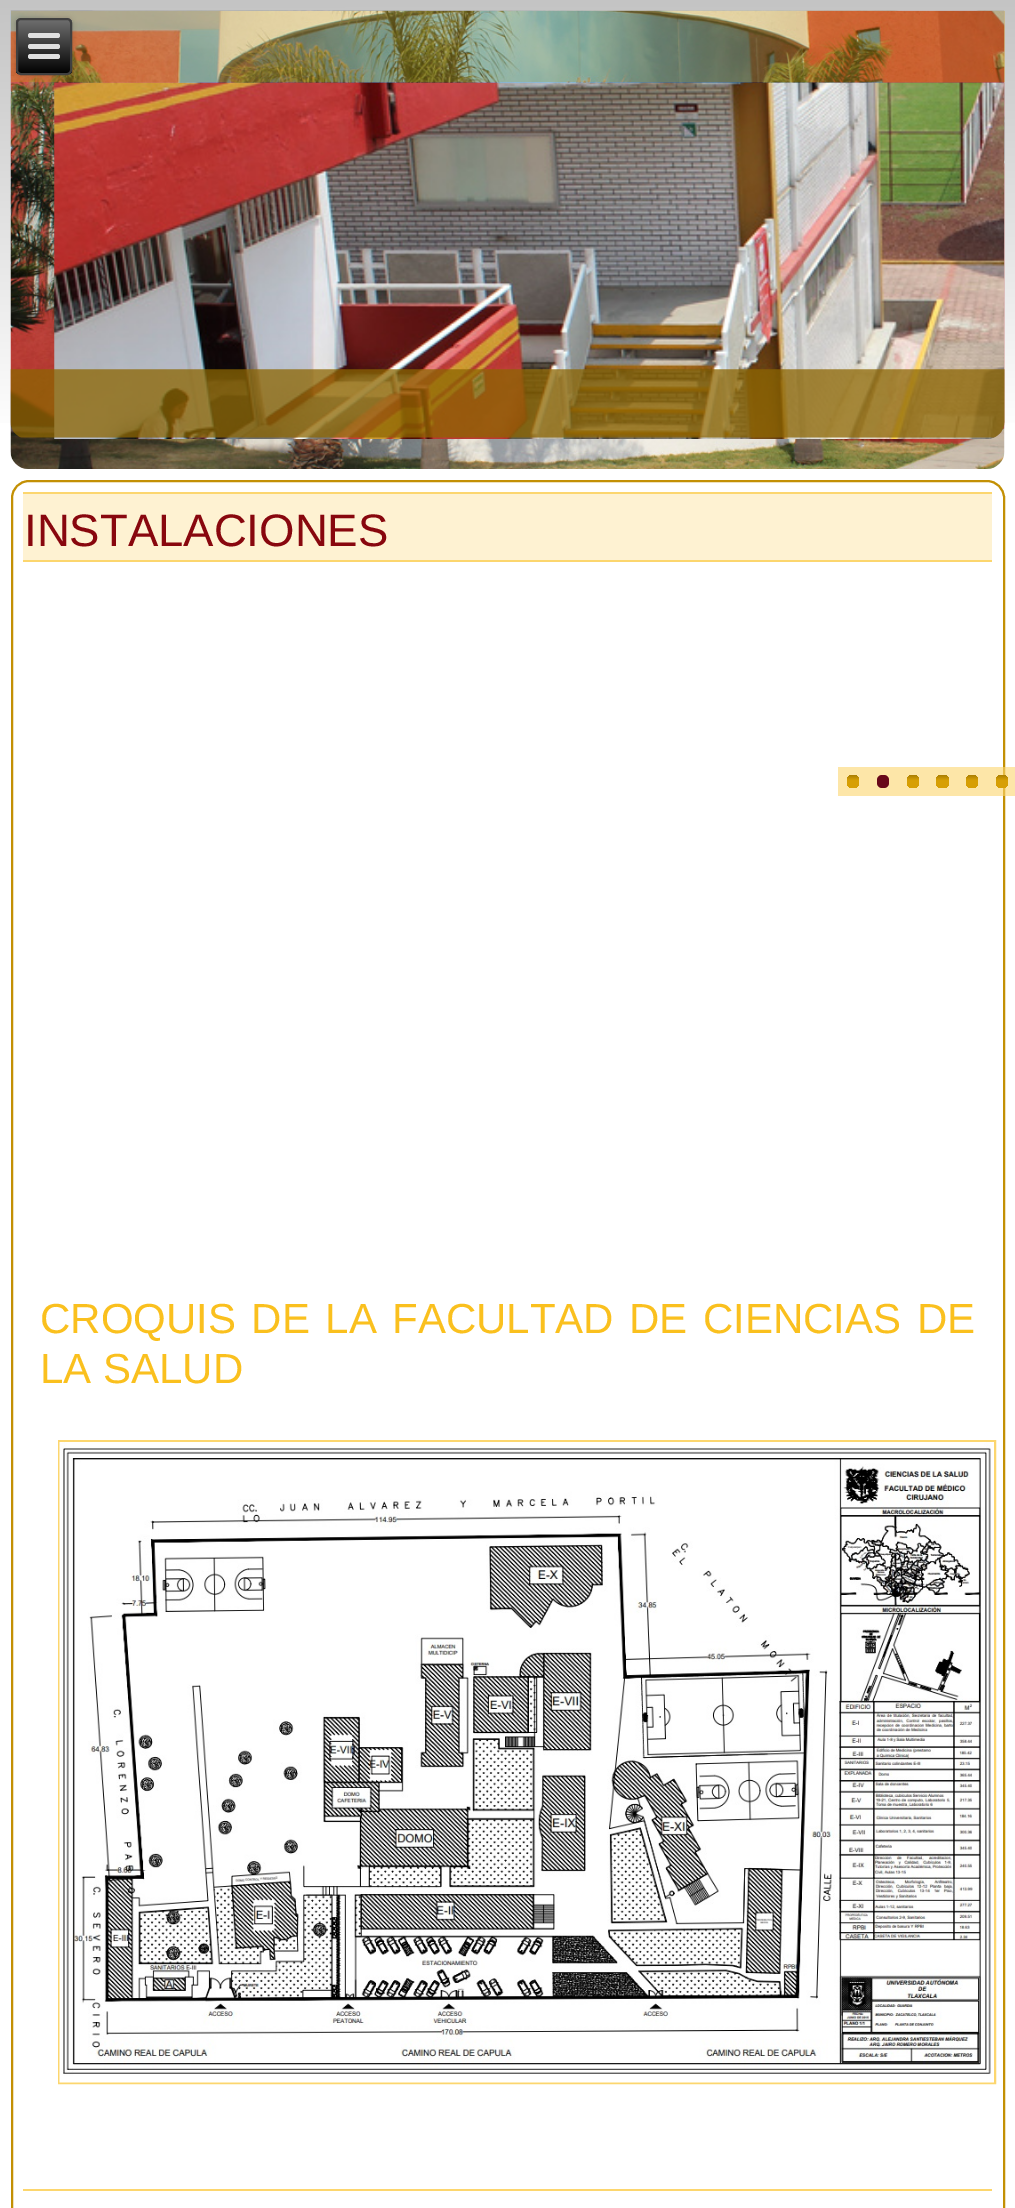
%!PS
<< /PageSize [1015 2208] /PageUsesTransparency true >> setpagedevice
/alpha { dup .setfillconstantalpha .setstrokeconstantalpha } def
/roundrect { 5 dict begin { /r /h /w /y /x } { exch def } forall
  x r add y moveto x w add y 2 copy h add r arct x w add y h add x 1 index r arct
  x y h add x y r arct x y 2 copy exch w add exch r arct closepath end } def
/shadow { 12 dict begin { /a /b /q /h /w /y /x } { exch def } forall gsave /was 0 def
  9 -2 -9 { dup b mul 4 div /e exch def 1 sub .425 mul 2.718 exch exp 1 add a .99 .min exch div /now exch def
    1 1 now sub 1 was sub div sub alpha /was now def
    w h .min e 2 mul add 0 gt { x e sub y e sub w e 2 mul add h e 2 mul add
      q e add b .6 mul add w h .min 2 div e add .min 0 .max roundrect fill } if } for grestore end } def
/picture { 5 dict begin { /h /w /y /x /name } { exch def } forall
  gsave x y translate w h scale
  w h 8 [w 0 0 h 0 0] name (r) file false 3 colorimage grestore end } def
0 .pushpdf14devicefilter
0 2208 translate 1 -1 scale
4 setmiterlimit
1 setgray
0 0 1015 2208 rectfill
gsave newpath 0 0 moveto 1015 0 lineto 1015 423 lineto 0 423 lineto closepath clip newpath
<< /ShadingType 2 /ColorSpace /DeviceRGB /Coords [507 0 508 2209] /Extend [true true] /Function << /FunctionType 3 /Domain [0 1] /Functions [<< /FunctionType 2 /Domain [0 1] /C0 [0.769 0.769 0.769] /C1 [1 1 1] /N 1 >> << /FunctionType 2 /Domain [0 1] /C0 [1 1 1] /C1 [1 1 1] /N 1 >>] /Bounds [0.2] /Encode [0 1 0 1] >> >> shfill grestore
(img1.rgb) 10 10 995 459 picture
0.3 alpha
0.824 0.608 0.016 setrgbcolor
11 11 994 71 rectfill
1 alpha
(img2.rgb) 54 82 951 357 picture
0 setgray
16 18 56 57 5 2.5 0.2 shadow
gsave
16 18 56 57 5 roundrect clip newpath
gsave newpath 16 19 moveto 72 19 lineto 72 74 lineto 16 74 lineto closepath clip newpath
<< /ShadingType 2 /ColorSpace /DeviceRGB /Coords [44 19 44 74] /Extend [true true] /Function << /FunctionType 2 /Domain [0 1] /C0 [0.439 0.439 0.439] /C1 [0 0 0] /N 1 >> >> shfill grestore
grestore
0.251 setgray
2 setlinewidth
17 19 54 55 4 roundrect stroke
0.878 setgray
28 33 32 5 2.5 roundrect fill
28 44 32 5 2.5 roundrect fill
28 54 32 5 2.5 roundrect fill
(img3.rgb) 10 369 995 69 picture
0.765 0.565 0.016 setrgbcolor
12 481 992 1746 17 roundrect stroke
0.6 alpha
0.988 0.839 0.431 setrgbcolor
838 767 177 29 rectfill
1 alpha
gsave 847 775 12 13 5 roundrect clip newpath
<< /ShadingType 2 /ColorSpace /DeviceRGB /Coords [853 775 853 788] /Extend [true true] /Function << /FunctionType 3 /Domain [0 1] /Functions [<< /FunctionType 2 /Domain [0 1] /C0 [0.667 0.494 0.012] /C1 [0.843 0.624 0.016] /N 1 >> << /FunctionType 2 /Domain [0 1] /C0 [0.843 0.624 0.016] /C1 [0.843 0.624 0.016] /N 1 >>] /Bounds [0.4] /Encode [0 1 0 1] >> >> shfill grestore
0.408 0.031 0.102 setrgbcolor
877 775 12 13 5 roundrect fill
gsave 907 775 12 13 5 roundrect clip newpath
<< /ShadingType 2 /ColorSpace /DeviceRGB /Coords [913 775 913 788] /Extend [true true] /Function << /FunctionType 3 /Domain [0 1] /Functions [<< /FunctionType 2 /Domain [0 1] /C0 [0.667 0.494 0.012] /C1 [0.843 0.624 0.016] /N 1 >> << /FunctionType 2 /Domain [0 1] /C0 [0.843 0.624 0.016] /C1 [0.843 0.624 0.016] /N 1 >>] /Bounds [0.4] /Encode [0 1 0 1] >> >> shfill grestore
gsave 936 775 13 13 5 roundrect clip newpath
<< /ShadingType 2 /ColorSpace /DeviceRGB /Coords [942 775 942 788] /Extend [true true] /Function << /FunctionType 3 /Domain [0 1] /Functions [<< /FunctionType 2 /Domain [0 1] /C0 [0.667 0.494 0.012] /C1 [0.843 0.624 0.016] /N 1 >> << /FunctionType 2 /Domain [0 1] /C0 [0.843 0.624 0.016] /C1 [0.843 0.624 0.016] /N 1 >>] /Bounds [0.4] /Encode [0 1 0 1] >> >> shfill grestore
gsave 966 775 12 13 5 roundrect clip newpath
<< /ShadingType 2 /ColorSpace /DeviceRGB /Coords [972 775 972 788] /Extend [true true] /Function << /FunctionType 3 /Domain [0 1] /Functions [<< /FunctionType 2 /Domain [0 1] /C0 [0.667 0.494 0.012] /C1 [0.843 0.624 0.016] /N 1 >> << /FunctionType 2 /Domain [0 1] /C0 [0.843 0.624 0.016] /C1 [0.843 0.624 0.016] /N 1 >>] /Bounds [0.4] /Encode [0 1 0 1] >> >> shfill grestore
gsave 996 775 12 13 5 roundrect clip newpath
<< /ShadingType 2 /ColorSpace /DeviceRGB /Coords [1002 775 1002 788] /Extend [true true] /Function << /FunctionType 3 /Domain [0 1] /Functions [<< /FunctionType 2 /Domain [0 1] /C0 [0.667 0.494 0.012] /C1 [0.843 0.624 0.016] /N 1 >> << /FunctionType 2 /Domain [0 1] /C0 [0.843 0.624 0.016] /C1 [0.843 0.624 0.016] /N 1 >>] /Bounds [0.4] /Encode [0 1 0 1] >> >> shfill grestore
0.996 0.949 0.824 setrgbcolor
23 494 969 66 rectfill
0.988 0.839 0.431 setrgbcolor
23 492 969 2 rectfill
23 560 969 2 rectfill
/LiberationSans-Regular [45.5 0 0 -45.5 0 0] selectfont
0.533 0.027 0.055 setrgbcolor
24 546 moveto (INSTALACIONES) show
/LiberationSans-Regular [42 0 0 -42 0 0] selectfont
0.98 0.753 0.118 setrgbcolor
40 1333 moveto 3.75 0 32 (CROQUIS DE LA FACULTAD DE CIENCIAS DE) widthshow
40 1383 moveto (LA SALUD) show
0.988 0.839 0.431 setrgbcolor
59 1441 936 642 rectstroke
(img4.rgb) 59 1442 935 641 picture
23 2189 969 2 rectfill
.poppdf14devicefilter showpage
